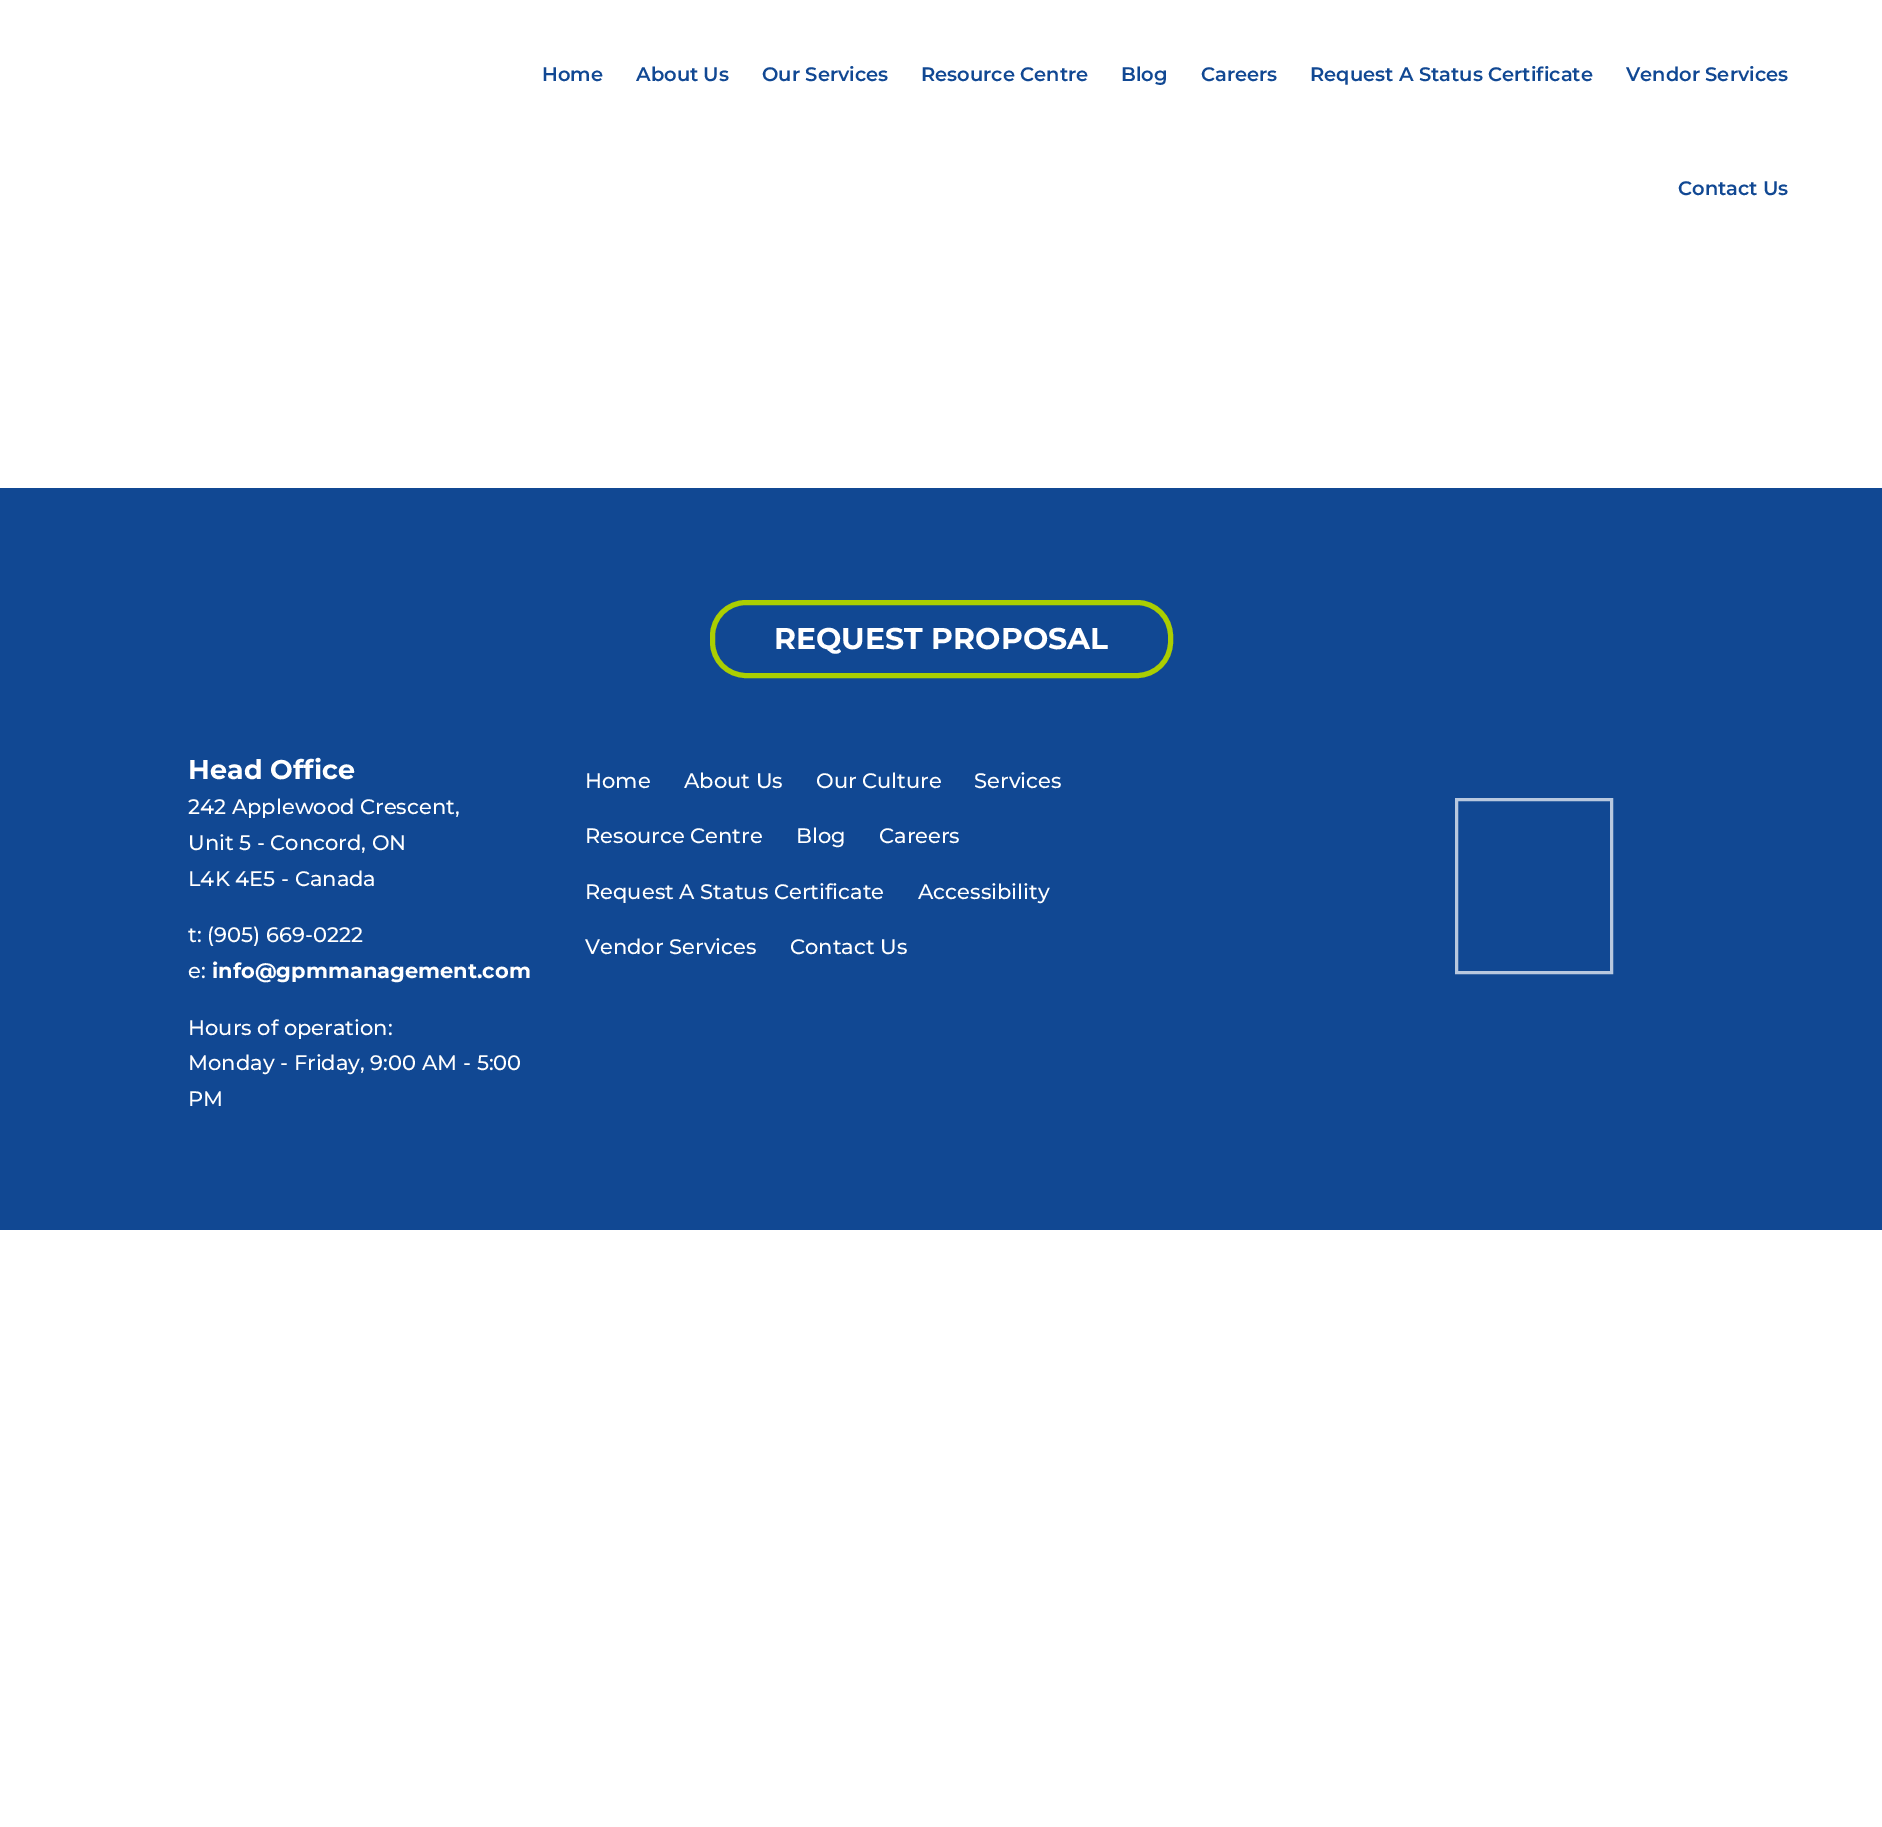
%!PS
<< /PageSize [1882 1827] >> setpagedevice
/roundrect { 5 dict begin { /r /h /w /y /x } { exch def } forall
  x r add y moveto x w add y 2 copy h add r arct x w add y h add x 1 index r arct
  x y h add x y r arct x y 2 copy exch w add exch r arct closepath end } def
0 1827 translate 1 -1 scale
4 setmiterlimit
1 setgray
0 0 1882 1827 rectfill
/Montserrat-SemiBold [19.5 0 0 -19.5 0 0] selectfont
0.067 0.282 0.576 setrgbcolor
542 81 moveto (Home) show
636 81 moveto (About Us) show
762 81 moveto (Our Services) show
921 81 moveto (Resource Centre) show
1121 81 moveto (Blog) show
1201 81 moveto (Careers) show
1310 81 moveto (Request A Status Certificate) show
1626 81 moveto (Vendor Services) show
1678 195 moveto (Contact Us) show
0 488 1882 742 rectfill
0.671 0.808 0.004 setrgbcolor
5 setlinewidth
712.5 602.5 458 73 33.5 roundrect stroke
/Montserrat-Bold [30 0 0 -30 0 0] selectfont
1 setgray
774 649 moveto (REQUEST PROPOSAL) show
/Montserrat-Bold [27 0 0 -27 0 0] selectfont
188 779 moveto (Head Office) show
/Montserrat-Medium [21 0 0 -21 0 0] selectfont
188 814 moveto (242 Applewood Crescent,) show
188 850 moveto (Unit 5 - Concord, ON) show
188 886 moveto (L4K 4E5 - Canada) show
188 942 moveto (t: \(905\) 669-0222) show
188 978 moveto (e:) show
/Montserrat-Bold [21 0 0 -21 0 0] selectfont
212 978 moveto (info@gpmmanagement.com) show
/Montserrat-Medium [21 0 0 -21 0 0] selectfont
188 1035 moveto (Hours of operation:) show
188 1070 moveto (Monday - Friday, 9:00 AM - 5:00) show
188 1106 moveto (PM) show
585 788 moveto (Home) show
684 788 moveto (About Us) show
816 788 moveto (Our Culture) show
974 788 moveto (Services) show
585 843 moveto (Resource Centre) show
796 843 moveto (Blog) show
879 843 moveto (Careers) show
585 899 moveto (Request A Status Certificate) show
918 899 moveto (Accessibility) show
585 954 moveto (Vendor Services) show
790 954 moveto (Contact Us) show
0.722 0.784 0.875 setrgbcolor
3 setlinewidth
1456.5 799.5 155 173 rectstroke
showpage
